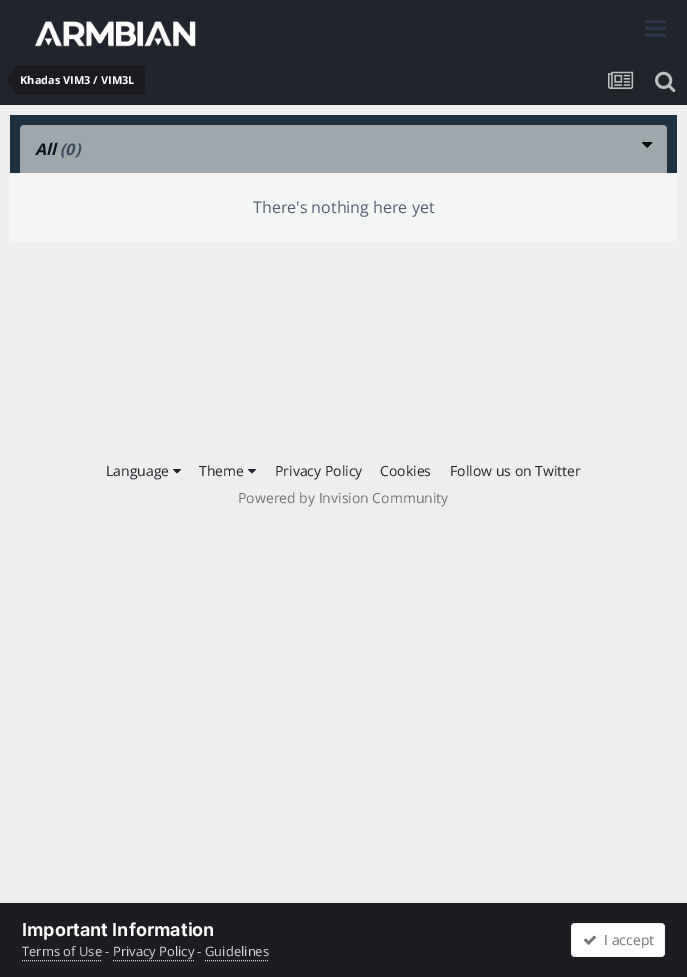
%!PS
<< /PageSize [687 977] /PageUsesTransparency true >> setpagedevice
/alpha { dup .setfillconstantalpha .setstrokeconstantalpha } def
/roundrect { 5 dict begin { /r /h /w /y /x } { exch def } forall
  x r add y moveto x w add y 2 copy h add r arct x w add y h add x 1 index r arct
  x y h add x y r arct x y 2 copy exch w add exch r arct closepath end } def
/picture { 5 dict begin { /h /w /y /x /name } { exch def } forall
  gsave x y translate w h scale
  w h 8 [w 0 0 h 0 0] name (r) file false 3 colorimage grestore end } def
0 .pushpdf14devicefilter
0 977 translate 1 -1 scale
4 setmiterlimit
0.933 setgray
0 0 687 977 rectfill
0.133 0.141 0.176 setrgbcolor
0 0 687 55 rectfill
(img1.rgb) 35 21 161 26 picture
(img2.rgb) 645 20 21 17 picture
0.129 0.141 0.169 setrgbcolor
0 55 687 50 rectfill
0.098 0.106 0.125 setrgbcolor
newpath 20 65 moveto 140 65 lineto 143 65 145 67 145 70 curveto 145 90 lineto 145 93 143 95 140 95 curveto 20 95 lineto closepath fill
newpath 20 80 moveto 20 95 lineto 15.5 95 13.5 90.5 11 87 curveto 9.5 85 7 83 7 80 curveto closepath 20 80 moveto 7 80 lineto 7 77 9.5 75 11 73 curveto 13.5 69.5 15.5 65 20 65 curveto closepath fill
/OpenSans-Bold [11 0 0 -11 0 0] selectfont
1 setgray
20 84 moveto (Khadas VIM3 / VIM3L) show
(img3.rgb) 608 71 26 18 picture
(img4.rgb) 655 71 21 22 picture
0.122 0.192 0.251 setrgbcolor
10 115 667 58 rectfill
0.62 0.655 0.675 setrgbcolor
newpath 24 125 moveto 663 125 lineto 665 125 667 127 667 129 curveto 667 173 lineto 20 173 lineto 20 129 lineto 20 127 22 125 24 125 curveto closepath fill
/OpenSans-BoldItalic [16 0 0 -16 0 0] selectfont
0.047 0.078 0.102 setrgbcolor
35 155 moveto (All) show
0.243 0.294 0.361 setrgbcolor
60 155 moveto (\(0\)) show
(img5.rgb) 642 142 11 6 picture
0.953 0.965 0.957 setrgbcolor
10 173 667 68 rectfill
/OpenSans-Regular [16 0 0 -16 0 0] selectfont
0.322 0.365 0.431 setrgbcolor
253 213 moveto (There's nothing here yet) show
/OpenSans-Regular [14 0 0 -14 0 0] selectfont
0.133 0.141 0.176 setrgbcolor
106 476 moveto (Language) show
(img6.rgb) 173 469 8 5 picture
199 476 moveto (Theme) show
(img6.rgb) 248 469 8 5 picture
275 476 moveto (Privacy Policy) show
380 476 moveto (Cookies) show
450 476 moveto (Follow us on Twitter) show
0.455 0.459 0.478 setrgbcolor
238 503 moveto (Powered by Invision Community) show
0.106 0.114 0.125 setrgbcolor
0 903 687 74 rectfill
/Inter-Bold [18 0 0 -18 0 0] selectfont
1 setgray
22 936 moveto (Important Information) show
/OpenSans-Regular [13 0 0 -13 0 0] selectfont
0.855 setgray
22 956 moveto (Terms of Use) show
[1 1] 0 setdash
newpath 22 960.5 moveto 102 960.5 lineto stroke
0.753 setgray
105 956 moveto (-) show
0.855 setgray
113 956 moveto (Privacy Policy) show
newpath 113 960.5 moveto 194 960.5 lineto stroke
0.753 setgray
197 956 moveto (-) show
0.855 setgray
205 956 moveto (Guidelines) show
newpath 205 960.5 moveto 269 960.5 lineto stroke
1 setgray
571 923 94 34 4 roundrect fill
0.07 alpha
0.467 setgray
[] 0 setdash
571.5 923.5 93 33 3.5 roundrect stroke
1 alpha
(img7.rgb) 584 935 12 10 picture
/OpenSans-Regular [14 0 0 -14 0 0] selectfont
0.455 0.459 0.478 setrgbcolor
604 945 moveto (I accept) show
.poppdf14devicefilter showpage
